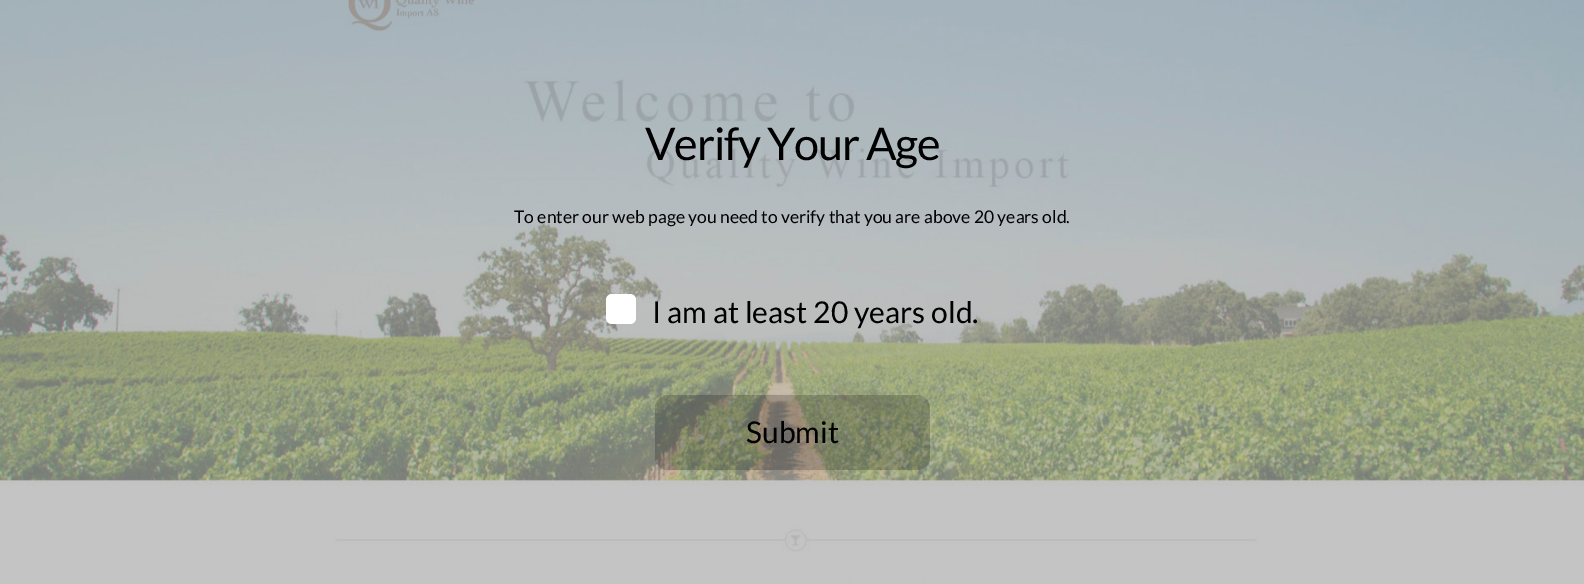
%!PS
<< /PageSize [1584 584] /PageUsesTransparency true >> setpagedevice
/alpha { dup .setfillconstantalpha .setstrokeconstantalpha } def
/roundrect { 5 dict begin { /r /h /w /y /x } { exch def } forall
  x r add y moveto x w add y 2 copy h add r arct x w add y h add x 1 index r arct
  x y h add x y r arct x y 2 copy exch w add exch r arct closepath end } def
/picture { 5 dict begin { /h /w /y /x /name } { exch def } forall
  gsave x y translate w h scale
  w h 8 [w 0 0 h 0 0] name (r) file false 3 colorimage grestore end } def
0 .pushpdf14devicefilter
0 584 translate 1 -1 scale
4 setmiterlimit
1 setgray
0 0 1584 584 rectfill
(img1.rgb) 0 0 1584 584 picture
/Lato-Regular [45 0 0 -45 0 0] selectfont
0 setgray
645 160 moveto -1.25 0 (Verify Your Age) ashow
/Lato-Regular [17.5 0 0 -17.5 0 0] selectfont
514 223 moveto (To enter our web page you need to verify that you are above 20 years old.) show
1 setgray
606 294 30 30 6 roundrect fill
/Lato-Regular [30 0 0 -30 0 0] selectfont
0 setgray
652 323 moveto (I am at least 20 years old.) show
0.2 alpha
655 395 275 75 13 roundrect fill
1 alpha
746 443 moveto (Submit) show
.poppdf14devicefilter showpage
